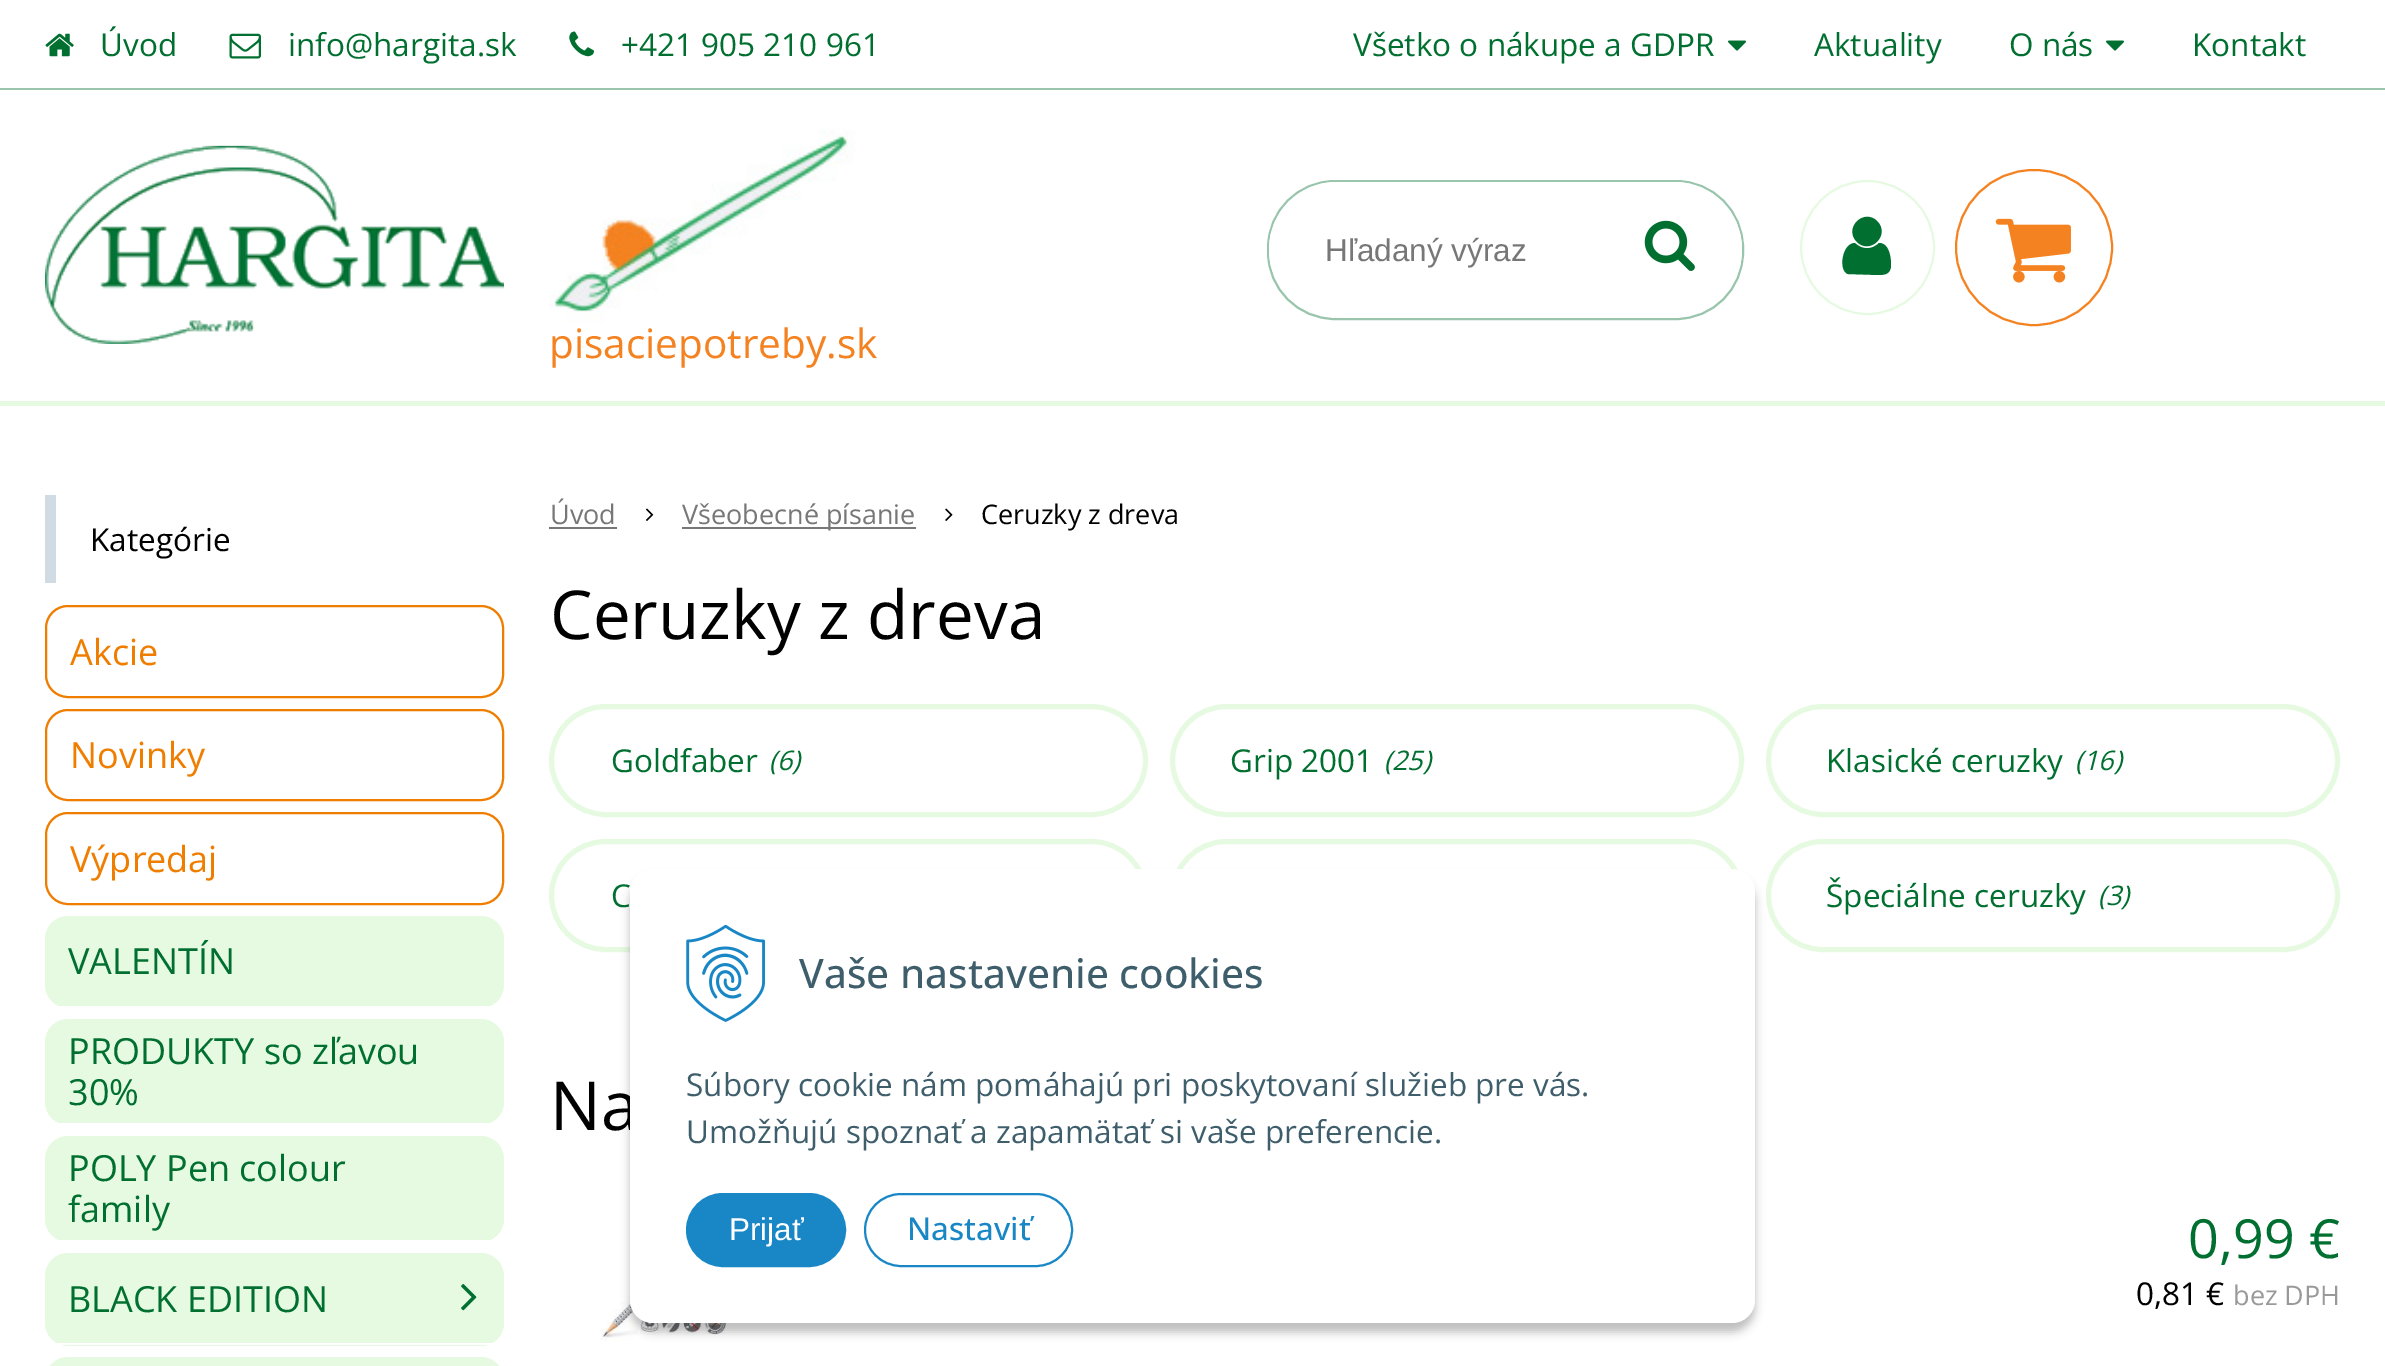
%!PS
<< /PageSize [2385 1366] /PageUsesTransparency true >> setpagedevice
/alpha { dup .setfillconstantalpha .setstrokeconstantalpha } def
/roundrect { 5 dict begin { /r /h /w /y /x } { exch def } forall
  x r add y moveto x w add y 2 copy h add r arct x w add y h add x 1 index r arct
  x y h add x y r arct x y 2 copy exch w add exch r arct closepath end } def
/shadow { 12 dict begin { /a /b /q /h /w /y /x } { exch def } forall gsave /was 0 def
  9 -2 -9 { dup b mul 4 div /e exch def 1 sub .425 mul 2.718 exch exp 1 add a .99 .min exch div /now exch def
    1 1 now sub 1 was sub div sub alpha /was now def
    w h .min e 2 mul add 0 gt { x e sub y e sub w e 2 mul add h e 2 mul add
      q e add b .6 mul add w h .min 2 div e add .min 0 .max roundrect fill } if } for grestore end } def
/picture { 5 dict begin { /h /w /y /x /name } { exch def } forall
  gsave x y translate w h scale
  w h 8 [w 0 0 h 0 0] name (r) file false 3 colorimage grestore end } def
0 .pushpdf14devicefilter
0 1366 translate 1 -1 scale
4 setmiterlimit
1 setgray
0 0 2385 1366 rectfill
0.902 0.98 0.882 setrgbcolor
0 401 2385 5 rectfill
(img1.rgb) 45 33 29 24 picture
/OpenSans-Regular [31.5 0 0 -31.5 0 0] selectfont
0 0.435 0.188 setrgbcolor
100 56 moveto (Úvod) show
(img2.rgb) 229 33 32 26 picture
288 56 moveto (info@hargita.sk) show
(img3.rgb) 569 31 25 26 picture
621 56 moveto (+421 905 210 961) show
(img4.rgb) 45 145 459 199 picture
(img5.rgb) 549 128 306 194 picture
/OpenSans-Regular [40.5 0 0 -40.5 0 0] selectfont
0.957 0.51 0.125 setrgbcolor
549 358 moveto (pisaciepotreby.sk) show
/OpenSans-Regular [31.5 0 0 -31.5 0 0] selectfont
0 0.435 0.188 setrgbcolor
1353 56 moveto (Všetko o nákupe a GDPR) show
(img6.rgb) 1728 40 18 11 picture
1814 56 moveto (Aktuality) show
2009 56 moveto (O nás) show
(img6.rgb) 2106 40 18 11 picture
2192 56 moveto (Kontakt) show
0.6 0.773 0.675 setrgbcolor
2 setlinewidth
1268 181 475 138 67 roundrect stroke
1 setgray
1269 182 473 135 67.5 roundrect fill
/LiberationSans-Regular [31.5 0 0 -31.5 0 0] selectfont
0.467 setgray
1325 261 moveto (Hľadaný výraz) show
(img7.rgb) 1644 220 51 51 picture
0.902 0.98 0.882 setrgbcolor
newpath 1867.5 247.5 66.5 0 360 arc closepath stroke
0 0.435 0.188 setrgbcolor
newpath 1891 265 moveto 1891 274 1885 275 1878 275 curveto 1848 274 lineto 1838 271 1842 243 1855 243 curveto 1862 250 1872 250 1879 243 curveto 1889 243 1891 257 1891 265 curveto closepath 1877 221 moveto 1891 235 1870 255 1857 242 curveto 1843 228 1864 208 1877 221 curveto closepath fill
0.961 0.51 0.125 setrgbcolor
1956 170 156 155 77.5 roundrect stroke
(img8.rgb) 1995 218 76 65 picture
0.6 0.773 0.675 setrgbcolor
0 88 2385 2 rectfill
0.82 0.859 0.89 setrgbcolor
45 495 11 88 rectfill
/OpenSans-Regular [31.5 0 0 -31.5 0 0] selectfont
0 setgray
90 551 moveto (Kategórie) show
0.933 0.49 0 setrgbcolor
46 606 457 91 22 roundrect stroke
/OpenSans-Regular [36 0 0 -36 0 0] selectfont
70 665 moveto (Akcie) show
46 710 457 90 22 roundrect stroke
70 768 moveto (Novinky) show
46 813 457 91 22 roundrect stroke
70 872 moveto (Výpredaj) show
0.902 0.98 0.882 setrgbcolor
45 916 459 92 23 roundrect fill
1 setgray
56 1006 437 2 rectfill
0 0.435 0.188 setrgbcolor
68 974 moveto (VALENTÍN) show
0.902 0.98 0.882 setrgbcolor
45 1019 459 106 23 roundrect fill
1 setgray
56 1123 437 2 rectfill
0 0.435 0.188 setrgbcolor
68 1064 moveto (PRODUKTY so zľavou) show
68 1105 moveto (30%) show
0.902 0.98 0.882 setrgbcolor
45 1136 459 106 23 roundrect fill
1 setgray
56 1240 437 2 rectfill
0 0.435 0.188 setrgbcolor
68 1181 moveto (POLY Pen colour) show
68 1222 moveto (family) show
0.902 0.98 0.882 setrgbcolor
45 1253 459 93 23 roundrect fill
1 setgray
56 1343 437 2 rectfill
0 0.435 0.188 setrgbcolor
68 1312 moveto (BLACK EDITION) show
(img9.rgb) 461 1284 16 27 picture
0.902 0.98 0.882 setrgbcolor
45 1357 459 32 23 roundrect fill
/OpenSans-Regular [27 0 0 -27 0 0] selectfont
0.467 setgray
550 524 moveto (Úvod) show
549 527 68 2 rectfill
(img10.rgb) 646 508 8 13 picture
682 527 234 2 rectfill
682 524 moveto (Všeobecné písanie) show
(img11.rgb) 945 508 8 13 picture
0 setgray
981 524 moveto (Ceruzky z dreva) show
/OpenSans-Regular [67.5 0 0 -67.5 0 0] selectfont
550 639 moveto (Ceruzky z dreva) show
0.902 0.98 0.882 setrgbcolor
5 setlinewidth
551.5 706.5 594 108 54 roundrect stroke
/OpenSans-Regular [31.5 0 0 -31.5 0 0] selectfont
0 0.435 0.188 setrgbcolor
611 772 moveto (Goldfaber) show
/OpenSans-Italic [27 0 0 -27 0 0] selectfont
769 770 moveto (\(6\)) show
0.902 0.98 0.882 setrgbcolor
1172.5 706.5 569 108 54 roundrect stroke
/OpenSans-Regular [31.5 0 0 -31.5 0 0] selectfont
0 0.435 0.188 setrgbcolor
1230 772 moveto (Grip 2001) show
/OpenSans-Italic [27 0 0 -27 0 0] selectfont
1384 770 moveto (\(25\)) show
0.902 0.98 0.882 setrgbcolor
1768.5 706.5 569 108 54 roundrect stroke
/OpenSans-Regular [31.5 0 0 -31.5 0 0] selectfont
0 0.435 0.188 setrgbcolor
1826 772 moveto (Klasické ceruzky) show
/OpenSans-Italic [27 0 0 -27 0 0] selectfont
2075 770 moveto (\(16\)) show
0.902 0.98 0.882 setrgbcolor
551.5 841.5 594 108 54 roundrect stroke
/OpenSans-Regular [31.5 0 0 -31.5 0 0] selectfont
0 0.435 0.188 setrgbcolor
611 907 moveto (C) show
0.902 0.98 0.882 setrgbcolor
1172.5 841.5 569 108 54 roundrect stroke
1768.5 841.5 569 108 54 roundrect stroke
0 0.435 0.188 setrgbcolor
1826 907 moveto (Špeciálne ceruzky) show
/OpenSans-Italic [27 0 0 -27 0 0] selectfont
2098 905 moveto (\(3\)) show
/OpenSans-Regular [67.5 0 0 -67.5 0 0] selectfont
0 setgray
550 1130 moveto (Na) show
(img12.rgb) 600 1217 127 124 picture
/OpenSans-Regular [54 0 0 -54 0 0] selectfont
0 0.435 0.188 setrgbcolor
2188 1258 moveto (0,99 €) show
/OpenSans-Regular [31.5 0 0 -31.5 0 0] selectfont
0 setgray
2136 1305 moveto (0,81 €) show
/OpenSans-Regular [27 0 0 -27 0 0] selectfont
0.6 setgray
2233 1305 moveto (bez DPH) show
0 setgray
630 878 1125 454 23 4.5 0.25 shadow
1 setgray
630 869 1125 454 23 roundrect fill
(img13.rgb) 686 925 79 97 picture
/OpenSans-Medium [40.5 0 0 -40.5 0 0] selectfont
0.247 0.369 0.424 setrgbcolor
799 988 moveto (Vaše nastavenie cookies) show
/OpenSans-Regular [31.5 0 0 -31.5 0 0] selectfont
686 1096 moveto (Súbory cookie nám pomáhajú pri poskytovaní služieb pre vás.) show
686 1143 moveto (Umožňujú spoznať a zapamätať si vaše preferencie.) show
0.098 0.529 0.776 setrgbcolor
687 1194 158 72 36 roundrect gsave fill grestore
2 setlinewidth
stroke
/LiberationSans-Regular [31.5 0 0 -31.5 0 0] selectfont
1 setgray
729 1240 moveto (Prijať) show
0.098 0.529 0.776 setrgbcolor
865 1194 207 72 36 roundrect stroke
/OpenSans-Medium [31.5 0 0 -31.5 0 0] selectfont
907 1240 moveto (Nastaviť) show
.poppdf14devicefilter showpage
